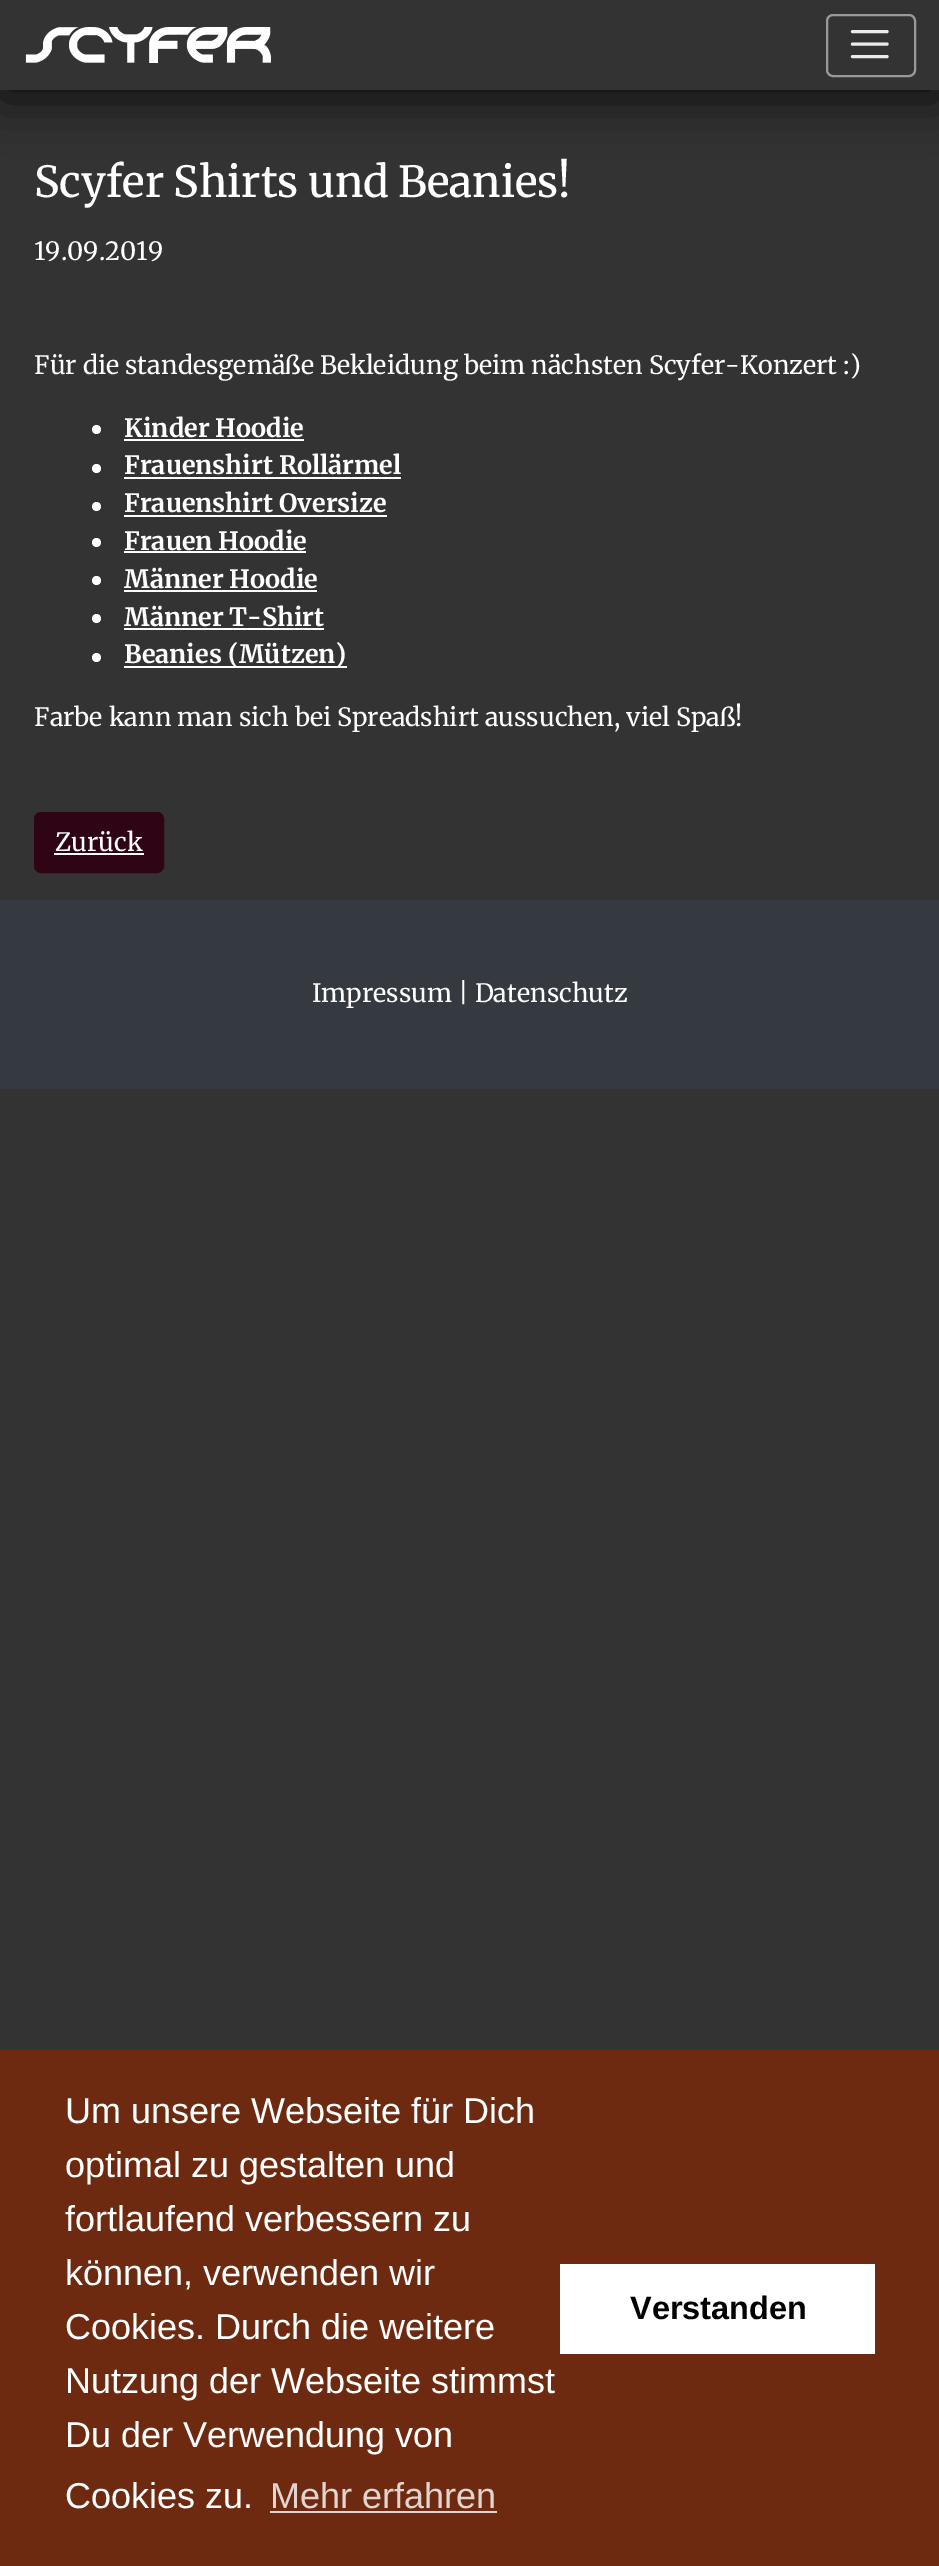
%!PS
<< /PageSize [939 2566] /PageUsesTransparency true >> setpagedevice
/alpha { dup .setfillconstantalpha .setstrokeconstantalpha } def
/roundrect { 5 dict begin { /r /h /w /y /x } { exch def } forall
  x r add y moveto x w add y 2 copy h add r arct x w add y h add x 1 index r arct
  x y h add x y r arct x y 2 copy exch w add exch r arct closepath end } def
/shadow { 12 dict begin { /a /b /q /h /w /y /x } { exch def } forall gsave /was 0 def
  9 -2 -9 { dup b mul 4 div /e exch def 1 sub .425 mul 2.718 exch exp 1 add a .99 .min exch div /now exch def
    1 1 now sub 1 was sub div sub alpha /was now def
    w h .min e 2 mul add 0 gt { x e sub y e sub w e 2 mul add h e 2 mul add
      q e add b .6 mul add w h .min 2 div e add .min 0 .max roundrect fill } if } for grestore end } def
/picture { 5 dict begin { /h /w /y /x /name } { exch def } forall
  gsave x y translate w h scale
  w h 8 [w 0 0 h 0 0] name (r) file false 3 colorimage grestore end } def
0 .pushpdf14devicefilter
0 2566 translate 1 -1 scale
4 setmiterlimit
0.2 setgray
0 0 939 2566 rectfill
0 setgray
0 9 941 90 0 26 0.75 shadow
0.2 setgray
0 0 939 90 rectfill
(img1.rgb) 25 27 246 36 picture
0.6 setgray
2 setlinewidth
827 15 88 61 6 roundrect stroke
0.922 setgray
3.1 setlinewidth
1 setlinecap
newpath 852.5 31.5 moveto 887 31.5 lineto 852.5 44 moveto 887 44 lineto 852.5 56.5 moveto 887 56.5 lineto stroke
/Merriweather-Medium [42.8 0 0 -42.8 0 0] selectfont
1 setgray
34 197 moveto -1 0 32 (Scyfer Shirts und Beanies!) widthshow
/Merriweather-Regular [25.2 0 0 -25.2 0 0] selectfont
34 260 moveto (19.09.2019) show
34 374 moveto (Für die standesgemäße Bekleidung beim nächsten Scyfer-Konzert :\)) show
newpath 96.5 429.5 4.5 0 360 arc closepath fill
/Merriweather-Bold [25.2 0 0 -25.2 0 0] selectfont
124 437 moveto (Kinder Hoodie) show
124 439 180 2 rectfill
newpath 96.5 468.5 4.5 0 360 arc closepath fill
124 474 moveto (Frauenshirt Rollärmel) show
124 477 277 2 rectfill
newpath 96.5 506.5 4.5 0 360 arc closepath fill
124 512 moveto (Frauenshirt Oversize) show
124 515 263 2 rectfill
newpath 96.5 542.5 4.5 0 360 arc closepath fill
124 550 moveto (Frauen Hoodie) show
124 551 182 2 rectfill
newpath 96.5 580.5 4.5 0 360 arc closepath fill
124 588 moveto (Männer Hoodie) show
124 590 193 2 rectfill
newpath 96.5 618.5 4.5 0 360 arc closepath fill
124 626 moveto (Männer T-Shirt) show
124 628 200 2 rectfill
newpath 96.5 657.5 4.5 0 360 arc closepath fill
124 666 223 2 rectfill
124 663 moveto (Beanies \(Mützen\)) show
/Merriweather-Regular [25.2 0 0 -25.2 0 0] selectfont
34 726 moveto (Farbe kann man sich bei Spreadshirt aussuchen, viel Spaß!) show
0.184 0.016 0.078 setrgbcolor
35 813 128 59 6 roundrect gsave fill grestore
2 setlinewidth
0 setlinecap
stroke
1 setgray
55 851 moveto (Zurück) show
54 853 90 2 rectfill
0.204 0.227 0.251 setrgbcolor
0 900 939 189 rectfill
1 setgray
312 1002 moveto (Impressum | Datenschutz) show
0.431 0.165 0.063 setrgbcolor
0 2050 939 516 rectfill
/LiberationSans-Regular [36 0 0 -36 0 0] selectfont
1 setgray
65 2123 moveto (Um unsere Webseite für Dich) show
65 2177 moveto (optimal zu gestalten und) show
65 2231 moveto (fortlaufend verbessern zu) show
65 2285 moveto (können, verwenden wir) show
65 2339 moveto (Cookies. Durch die weitere) show
65 2393 moveto (Nutzung der Webseite stimmst) show
65 2447 moveto (Du der Verwendung von) show
65 2508 moveto (Cookies zu.) show
0.886 0.831 0.812 setrgbcolor
270 2508 moveto (Mehr erfahren) show
270 2511 227 2 rectfill
1 setgray
560 2264 315 90 rectfill
/LiberationSans-Bold [32.5 0 0 -32.5 0 0] selectfont
0 setgray
630 2319 moveto (Verstanden) show
.poppdf14devicefilter showpage
